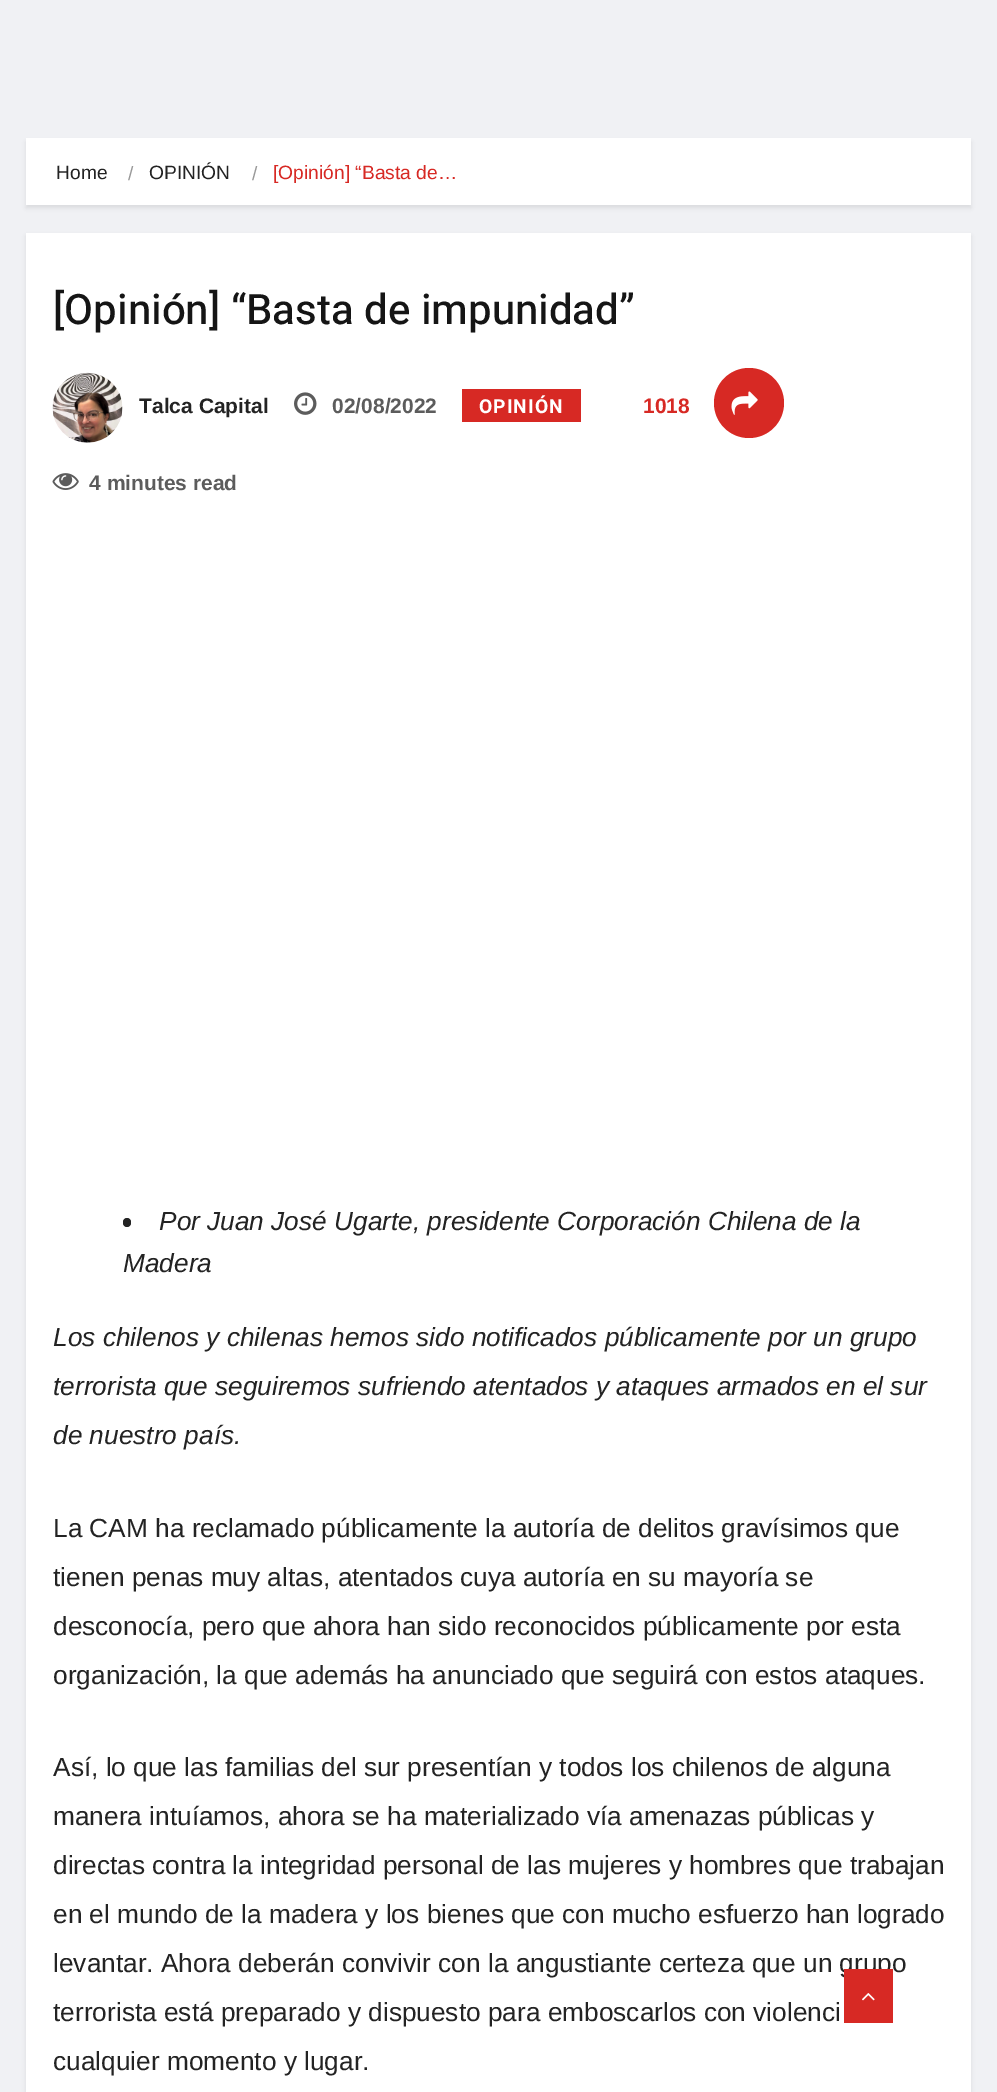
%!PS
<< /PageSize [997 2092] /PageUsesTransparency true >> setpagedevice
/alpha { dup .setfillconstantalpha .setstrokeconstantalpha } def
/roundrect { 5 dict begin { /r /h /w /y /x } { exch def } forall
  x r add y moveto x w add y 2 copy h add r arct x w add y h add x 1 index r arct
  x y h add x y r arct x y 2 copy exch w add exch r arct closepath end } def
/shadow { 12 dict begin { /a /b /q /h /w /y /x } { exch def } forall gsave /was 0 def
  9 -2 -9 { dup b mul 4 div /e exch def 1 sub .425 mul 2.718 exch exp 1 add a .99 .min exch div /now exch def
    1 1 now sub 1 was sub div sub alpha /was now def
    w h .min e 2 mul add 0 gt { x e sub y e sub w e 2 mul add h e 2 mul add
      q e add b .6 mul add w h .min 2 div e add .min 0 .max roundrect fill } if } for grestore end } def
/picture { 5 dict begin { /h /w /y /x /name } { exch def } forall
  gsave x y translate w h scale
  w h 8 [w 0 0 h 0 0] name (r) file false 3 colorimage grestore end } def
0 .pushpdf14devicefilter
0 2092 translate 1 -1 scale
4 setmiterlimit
0.941 0.945 0.957 setrgbcolor
0 0 997 2092 rectfill
0 setgray
26 142 945 66 0 2 0.08 shadow
1 setgray
26 138 945 67 rectfill
/Arimo-Regular [19.25 0 0 -19.25 0 0] selectfont
0.137 setgray
56 179 moveto (Home) show
0.6 setgray
128 180 moveto (/) show
0.137 setgray
149 179 moveto (OPINIÓN) show
0.6 setgray
252 180 moveto (/) show
0.843 0.161 0.141 setrgbcolor
273 179 moveto ([Opinión] “Basta de…) show
0 setgray
26 236 945 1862 0 2 0.08 shadow
1 setgray
26 233 945 1859 rectfill
/Heebo-Medium [42 0 0 -42 0 0] selectfont
0.082 setgray
53 324 moveto ([Opinión] “Basta de impunidad”) show
(img1.rgb) 52 372 71 71 picture
/Arimo-Bold [21 0 0 -21 0 0] selectfont
0.137 setgray
139 413 moveto (Talca Capital) show
(img2.rgb) 294 392 23 23 picture
0.361 setgray
332 413 moveto (02/08/2022) show
0.843 0.161 0.141 setrgbcolor
462 389 119 33 rectfill
/Heebo-Bold [19.25 0 0 -19.25 0 0] selectfont
1 setgray
479 413 moveto 1 0 (OPINIÓN) ashow
/Arimo-Bold [21 0 0 -21 0 0] selectfont
0.843 0.161 0.141 setrgbcolor
643 413 moveto (1018) show
newpath 749 403 35 0 360 arc closepath fill
(img3.rgb) 731 391 27 24 picture
(img4.rgb) 52 473 27 17 picture
0.361 setgray
89 490 moveto (4 minutes read) show
0.137 setgray
123 1218 8 9 4 roundrect fill
/Arimo-Italic [26.25 0 0 -26.25 0 0] selectfont
159 1230 moveto (Por Juan José Ugarte, presidente Corporación Chilena de la) show
123 1272 moveto (Madera) show
53 1346 moveto (Los chilenos y chilenas hemos sido notificados públicamente por un grupo) show
53 1395 moveto (terrorista que seguiremos sufriendo atentados y ataques armados en el sur) show
53 1444 moveto (de nuestro país.) show
/Arimo-Regular [26.25 0 0 -26.25 0 0] selectfont
53 1537 moveto (La CAM ha reclamado públicamente la autoría de delitos gravísimos que) show
53 1586 moveto (tienen penas muy altas, atentados cuya autoría en su mayoría se) show
53 1635 moveto (desconocía, pero que ahora han sido reconocidos públicamente por esta) show
53 1684 moveto (organización, la que además ha anunciado que seguirá con estos ataques.) show
53 1776 moveto (Así, lo que las familias del sur presentían y todos los chilenos de alguna) show
53 1825 moveto (manera intuíamos, ahora se ha materializado vía amenazas públicas y) show
53 1874 moveto (directas contra la integridad personal de las mujeres y hombres que trabajan) show
53 1923 moveto (en el mundo de la madera y los bienes que con mucho esfuerzo han logrado) show
53 1972 moveto (levantar. Ahora deberán convivir con la angustiante certeza que un grupo) show
53 2021 moveto (terrorista está preparado y dispuesto para emboscarlos con violenci) show
53 2070 moveto (cualquier momento y lugar.) show
0.843 0.161 0.141 setrgbcolor
844 1969 49 54 rectfill
(img5.rgb) 862 1993 13 8 picture
.poppdf14devicefilter showpage
